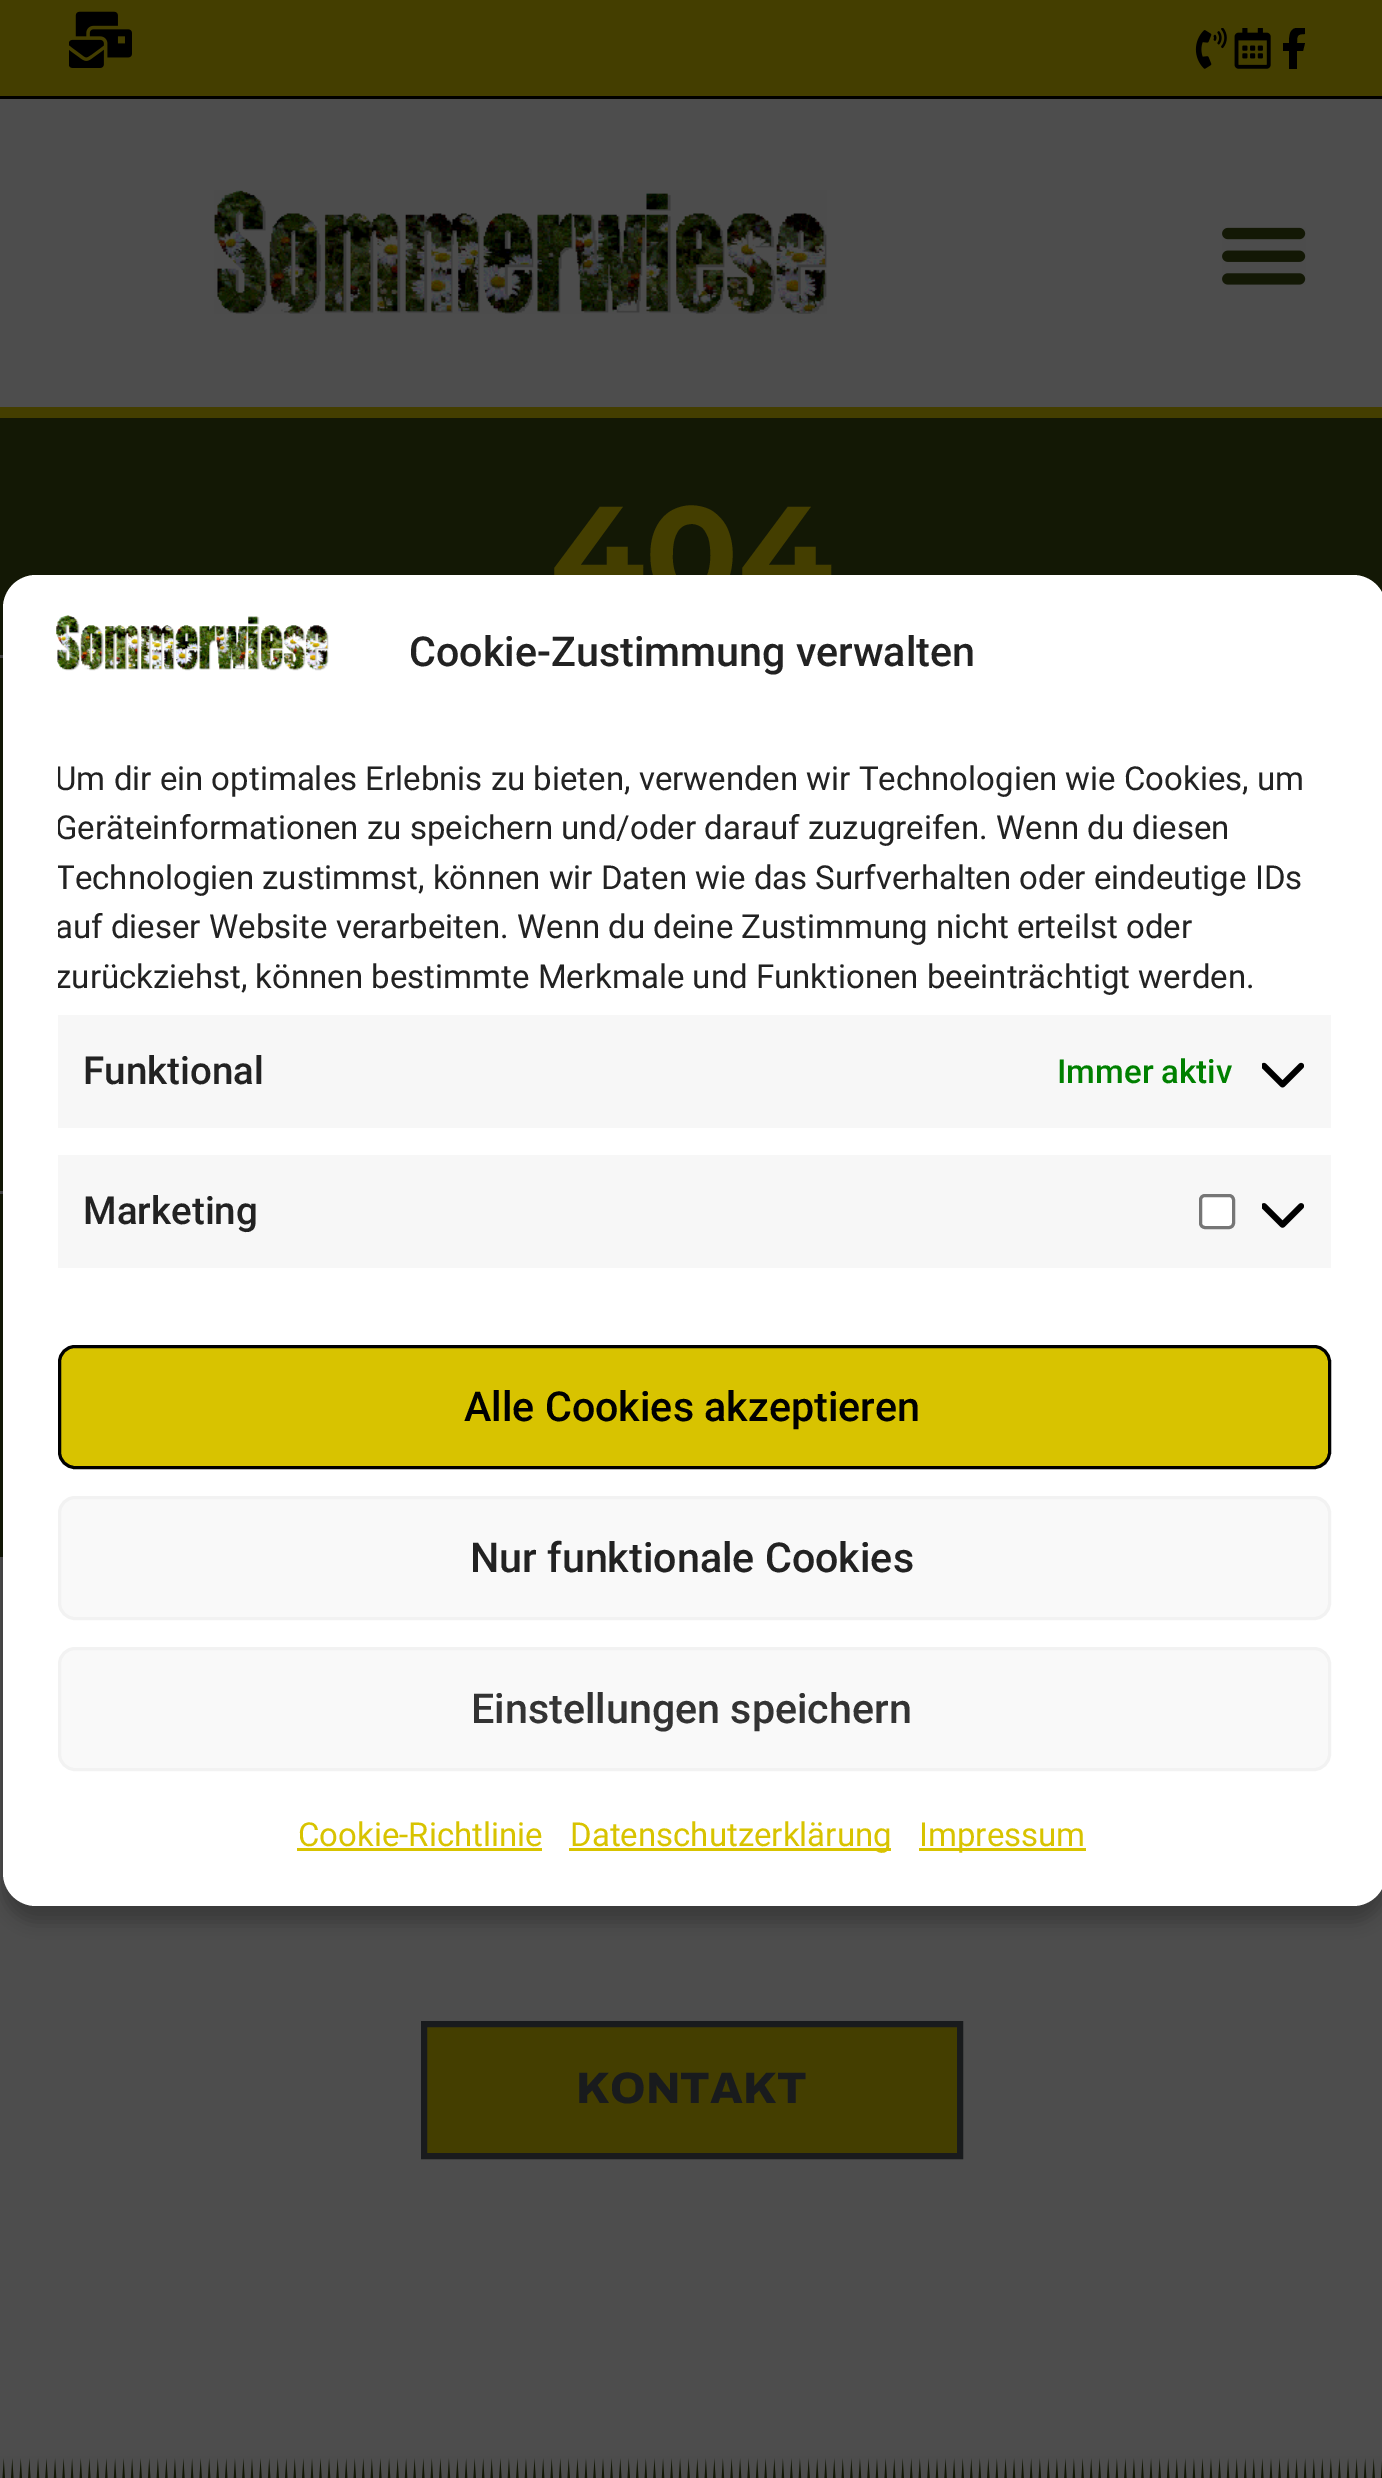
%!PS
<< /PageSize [1382 2478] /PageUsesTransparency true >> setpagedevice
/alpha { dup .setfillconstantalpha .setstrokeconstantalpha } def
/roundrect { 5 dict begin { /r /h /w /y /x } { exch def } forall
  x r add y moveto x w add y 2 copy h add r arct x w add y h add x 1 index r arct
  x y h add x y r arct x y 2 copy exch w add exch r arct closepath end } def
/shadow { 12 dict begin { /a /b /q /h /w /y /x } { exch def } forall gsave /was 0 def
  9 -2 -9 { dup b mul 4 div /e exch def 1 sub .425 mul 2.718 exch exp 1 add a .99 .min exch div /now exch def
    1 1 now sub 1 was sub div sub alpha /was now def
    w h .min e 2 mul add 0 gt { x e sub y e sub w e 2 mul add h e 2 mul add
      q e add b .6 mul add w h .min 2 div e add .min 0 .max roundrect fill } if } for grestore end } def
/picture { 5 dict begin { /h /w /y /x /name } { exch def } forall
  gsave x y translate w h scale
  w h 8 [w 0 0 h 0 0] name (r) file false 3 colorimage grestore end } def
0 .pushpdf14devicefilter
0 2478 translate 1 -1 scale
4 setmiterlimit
0.302 setgray
0 0 1382 2478 rectfill
0.267 0.243 0 setrgbcolor
0 0 1382 96 rectfill
0 setgray
0 96 1382 3 rectfill
(img1.rgb) 69 11 63 57 picture
(img2.rgb) 1195 28 32 41 picture
(img3.rgb) 1234 28 37 41 picture
gsave
1273 28 42 41 rectclip
newpath 1303 51 moveto 1305 43 lineto 1297 43 lineto 1297 36 1297 34 1305 34 curveto 1305 28 lineto 1291 26 1289 31 1289 43 curveto 1283 43 lineto 1283 51 lineto 1289 51 lineto 1289 69 lineto 1297 69 lineto 1297 51 lineto closepath fill
grestore
0.267 0.243 0 setrgbcolor
0 407 1382 11 rectfill
(img4.rgb) 214 190 613 124 picture
(img5.rgb) 1222 227 84 58 picture
0.075 0.094 0.02 setrgbcolor
0 418 1382 1139 rectfill
/Montserrat-Bold [137.5 0 0 -137.5 0 0] selectfont
0.267 0.243 0 setrgbcolor
550 603 moveto (404) show
0.282 setgray
0 655 3 3 rectfill
0 1191 3 3 rectfill
0.267 0.243 0 setrgbcolor
newpath 424 2024 moveto 960 2024 lineto 960 2156 lineto 424 2156 lineto closepath gsave fill grestore
0.098 0.106 0.114 setrgbcolor
6 setlinewidth
stroke
/Archivo-ExtraBold [44 0 0 -44 0 0] selectfont
576 2103 moveto (KONTAKT) show
gsave
newpath 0 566 moveto 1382 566 lineto 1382 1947 lineto 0 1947 lineto closepath 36 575 moveto 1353 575 lineto 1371 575 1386 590 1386 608 curveto 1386 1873 lineto 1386 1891 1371 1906 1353 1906 curveto 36 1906 lineto 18 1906 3 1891 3 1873 curveto 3 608 lineto 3 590 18 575 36 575 curveto closepath eoclip newpath
0 setgray
3 591 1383 1331 33 8 0.23 shadow
grestore
1 setgray
3 575 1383 1331 33 roundrect fill
(img6.rgb) 56 615 273 56 picture
/Roboto-Medium [41.25 0 0 -41.25 0 0] selectfont
0.133 setgray
409 666 moveto (Cookie-Zustimmung verwalten) show
gsave
58 754 1273 514 rectclip
/Roboto-Regular [33 0 0 -33 0 0] selectfont
55 790 moveto (Um dir ein optimales Erlebnis zu bieten, verwenden wir Technologien wie Cookies, um) show
55 839 moveto (Geräteinformationen zu speichern und/oder darauf zuzugreifen. Wenn du diesen) show
55 889 moveto (Technologien zustimmst, können wir Daten wie das Surfverhalten oder eindeutige IDs) show
55 938 moveto (auf dieser Website verarbeiten. Wenn du deine Zustimmung nicht erteilst oder) show
55 988 moveto (zurückziehst, können bestimmte Merkmale und Funktionen beeinträchtigt werden.) show
grestore
0.969 setgray
58 1015 1273 113 rectfill
/Roboto-Medium [38.5 0 0 -38.5 0 0] selectfont
0.133 setgray
83 1084 moveto (Funktional) show
/Roboto-Medium [33 0 0 -33 0 0] selectfont
0 0.502 0 setrgbcolor
1057 1083 moveto (Immer aktiv) show
(img7.rgb) 1262 1062 42 26 picture
0.969 setgray
58 1155 1273 113 rectfill
/Roboto-Medium [38.5 0 0 -38.5 0 0] selectfont
0.133 setgray
83 1224 moveto (Marketing) show
1 setgray
1200.5 1195.5 33 32 4.5 roundrect gsave fill grestore
0.463 setgray
3 setlinewidth
stroke
(img8.rgb) 1262 1203 42 25 picture
0.847 0.765 0 setrgbcolor
59.5 1346.5 1270 121 15.5 roundrect gsave fill grestore
0 setgray
stroke
/Roboto-Medium [41.25 0 0 -41.25 0 0] selectfont
464 1421 moveto (Alle Cookies akzeptieren) show
0.976 setgray
59.5 1497.5 1270 121 15.5 roundrect gsave fill grestore
0.949 setgray
stroke
0.133 setgray
470 1572 moveto (Nur funktionale Cookies) show
0.976 setgray
59.5 1648.5 1270 121 15.5 roundrect gsave fill grestore
0.949 setgray
stroke
0.2 setgray
471 1723 moveto (Einstellungen speichern) show
/Roboto-Regular [33 0 0 -33 0 0] selectfont
0.847 0.765 0 setrgbcolor
298 1846 moveto (Cookie-Richtlinie) show
297 1848 245 3 rectfill
569 1848 322 3 rectfill
570 1846 moveto (Datenschutzerklärung) show
919 1848 167 3 rectfill
919 1846 moveto (Impressum) show
0.075 0.094 0.02 setrgbcolor
2 2458 1380 20 rectfill
(img9.rgb) 0 2456 1382 22 picture
.poppdf14devicefilter showpage
